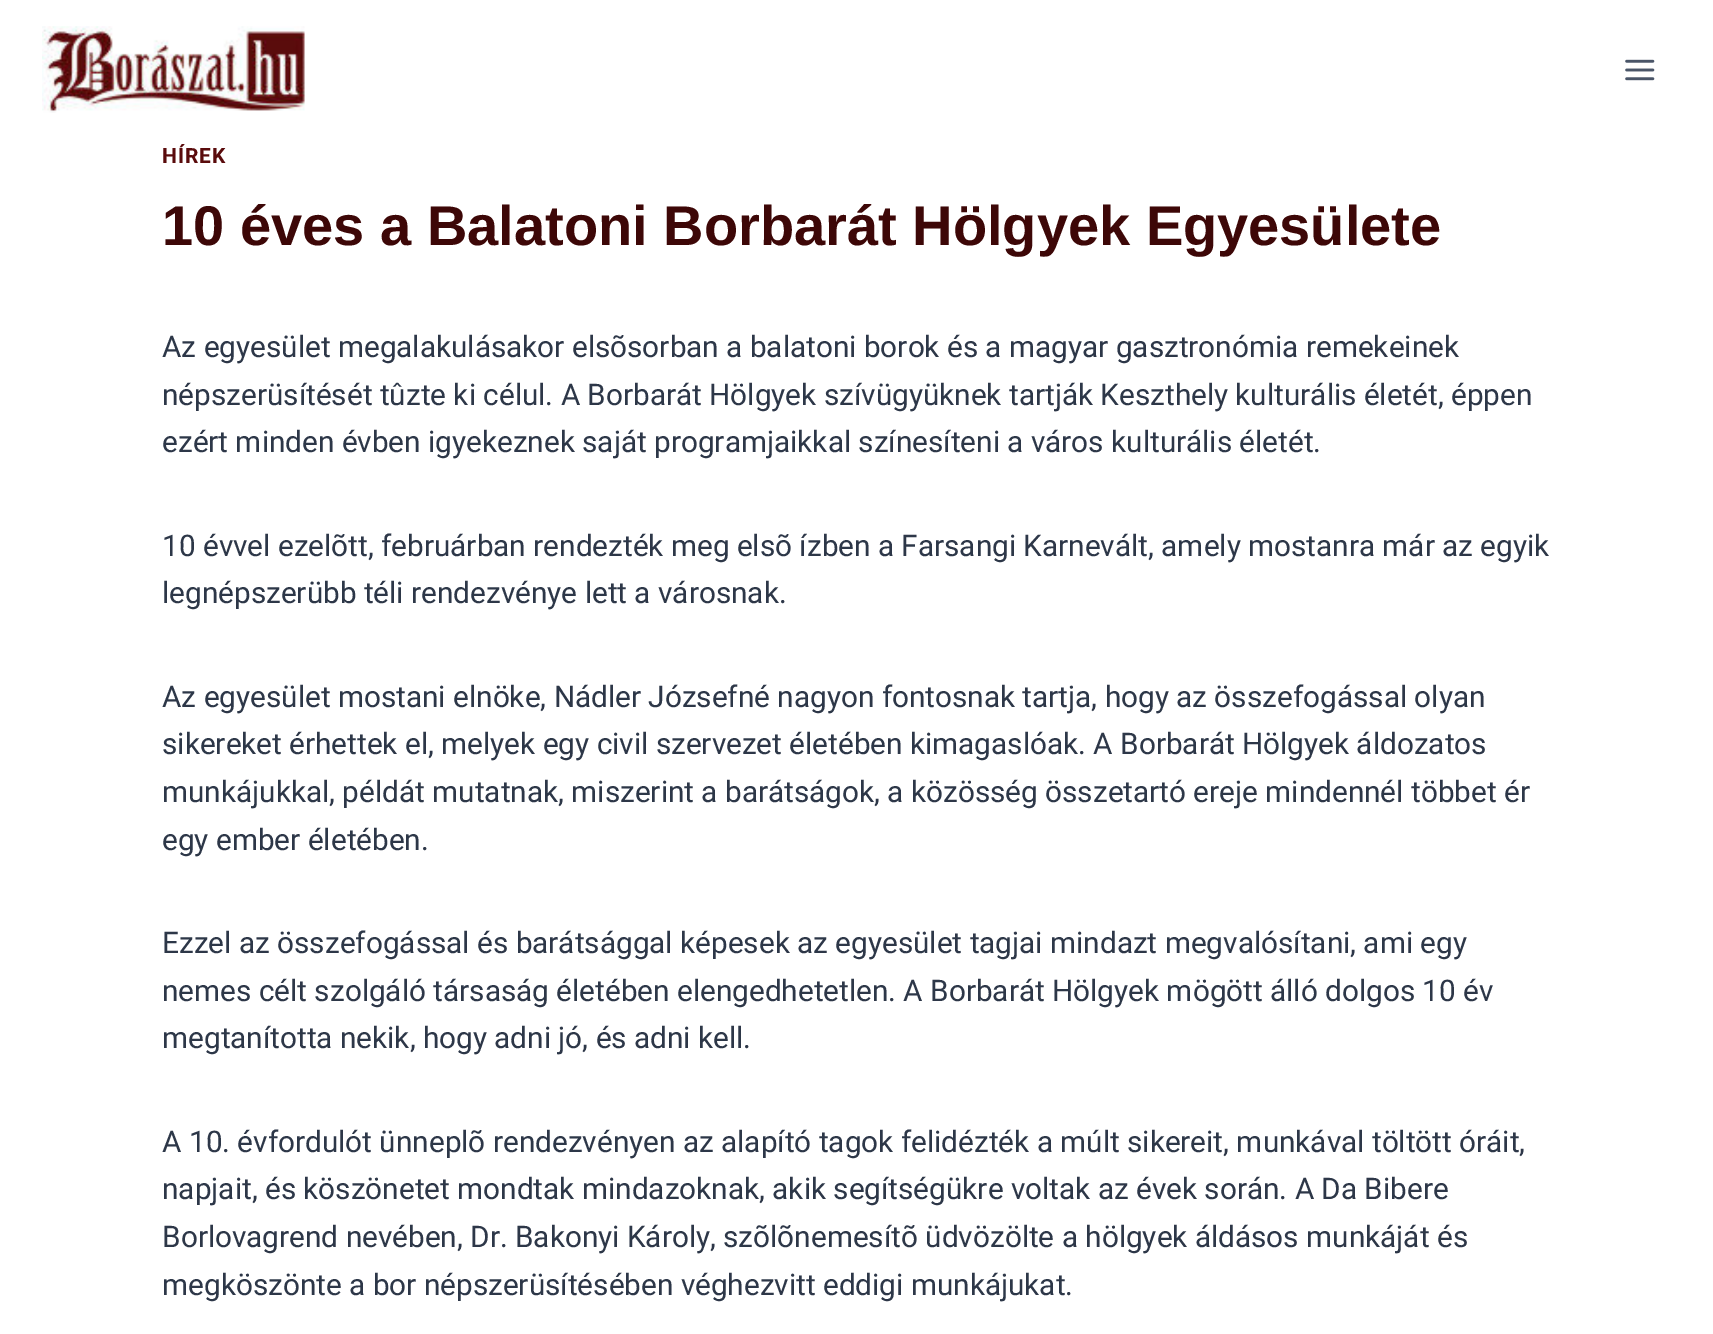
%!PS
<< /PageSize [1713 1334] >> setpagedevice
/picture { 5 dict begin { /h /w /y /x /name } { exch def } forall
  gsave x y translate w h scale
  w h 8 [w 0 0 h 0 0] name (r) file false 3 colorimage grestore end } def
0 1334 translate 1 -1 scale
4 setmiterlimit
1 setgray
0 0 1713 1334 rectfill
(img1.rgb) 42 26 263 87 picture
(img2.rgb) 1625 59 30 22 picture
/Roboto-Bold [21 0 0 -21 0 0] selectfont
0.353 0.043 0.047 setrgbcolor
162 163 moveto 1 0 (HÍREK) ashow
/LiberationSans-Bold [56 0 0 -56 0 0] selectfont
0.239 0.027 0.027 setrgbcolor
162 245 moveto (10 éves a Balatoni Borbarát Hölgyek Egyesülete) show
/Roboto-Regular [29.75 0 0 -29.75 0 0] selectfont
0.176 0.216 0.282 setrgbcolor
162 357 moveto (Az egyesület megalakulásakor elsõsorban a balatoni borok és a magyar gasztronómia remekeinek) show
162 405 moveto (népszerüsítését tûzte ki célul. A Borbarát Hölgyek szívügyüknek tartják Keszthely kulturális életét, éppen) show
162 452 moveto (ezért minden évben igyekeznek saját programjaikkal színesíteni a város kulturális életét.) show
162 556 moveto (10 évvel ezelõtt, februárban rendezték meg elsõ ízben a Farsangi Karnevált, amely mostanra már az egyik) show
162 603 moveto (legnépszerübb téli rendezvénye lett a városnak.) show
162 707 moveto (Az egyesület mostani elnöke, Nádler Józsefné nagyon fontosnak tartja, hogy az összefogással olyan) show
162 754 moveto (sikereket érhettek el, melyek egy civil szervezet életében kimagaslóak. A Borbarát Hölgyek áldozatos) show
162 802 moveto (munkájukkal, példát mutatnak, miszerint a barátságok, a közösség összetartó ereje mindennél többet ér) show
162 850 moveto (egy ember életében.) show
162 953 moveto (Ezzel az összefogással és barátsággal képesek az egyesület tagjai mindazt megvalósítani, ami egy) show
162 1001 moveto (nemes célt szolgáló társaság életében elengedhetetlen. A Borbarát Hölgyek mögött álló dolgos 10 év) show
162 1048 moveto (megtanította nekik, hogy adni jó, és adni kell.) show
162 1152 moveto (A 10. évfordulót ünneplõ rendezvényen az alapító tagok felidézték a múlt sikereit, munkával töltött óráit,) show
162 1199 moveto (napjait, és köszönetet mondtak mindazoknak, akik segítségükre voltak az évek során. A Da Bibere) show
162 1247 moveto (Borlovagrend nevében, Dr. Bakonyi Károly, szõlõnemesítõ üdvözölte a hölgyek áldásos munkáját és) show
162 1295 moveto (megköszönte a bor népszerüsítésében véghezvitt eddigi munkájukat.) show
showpage
